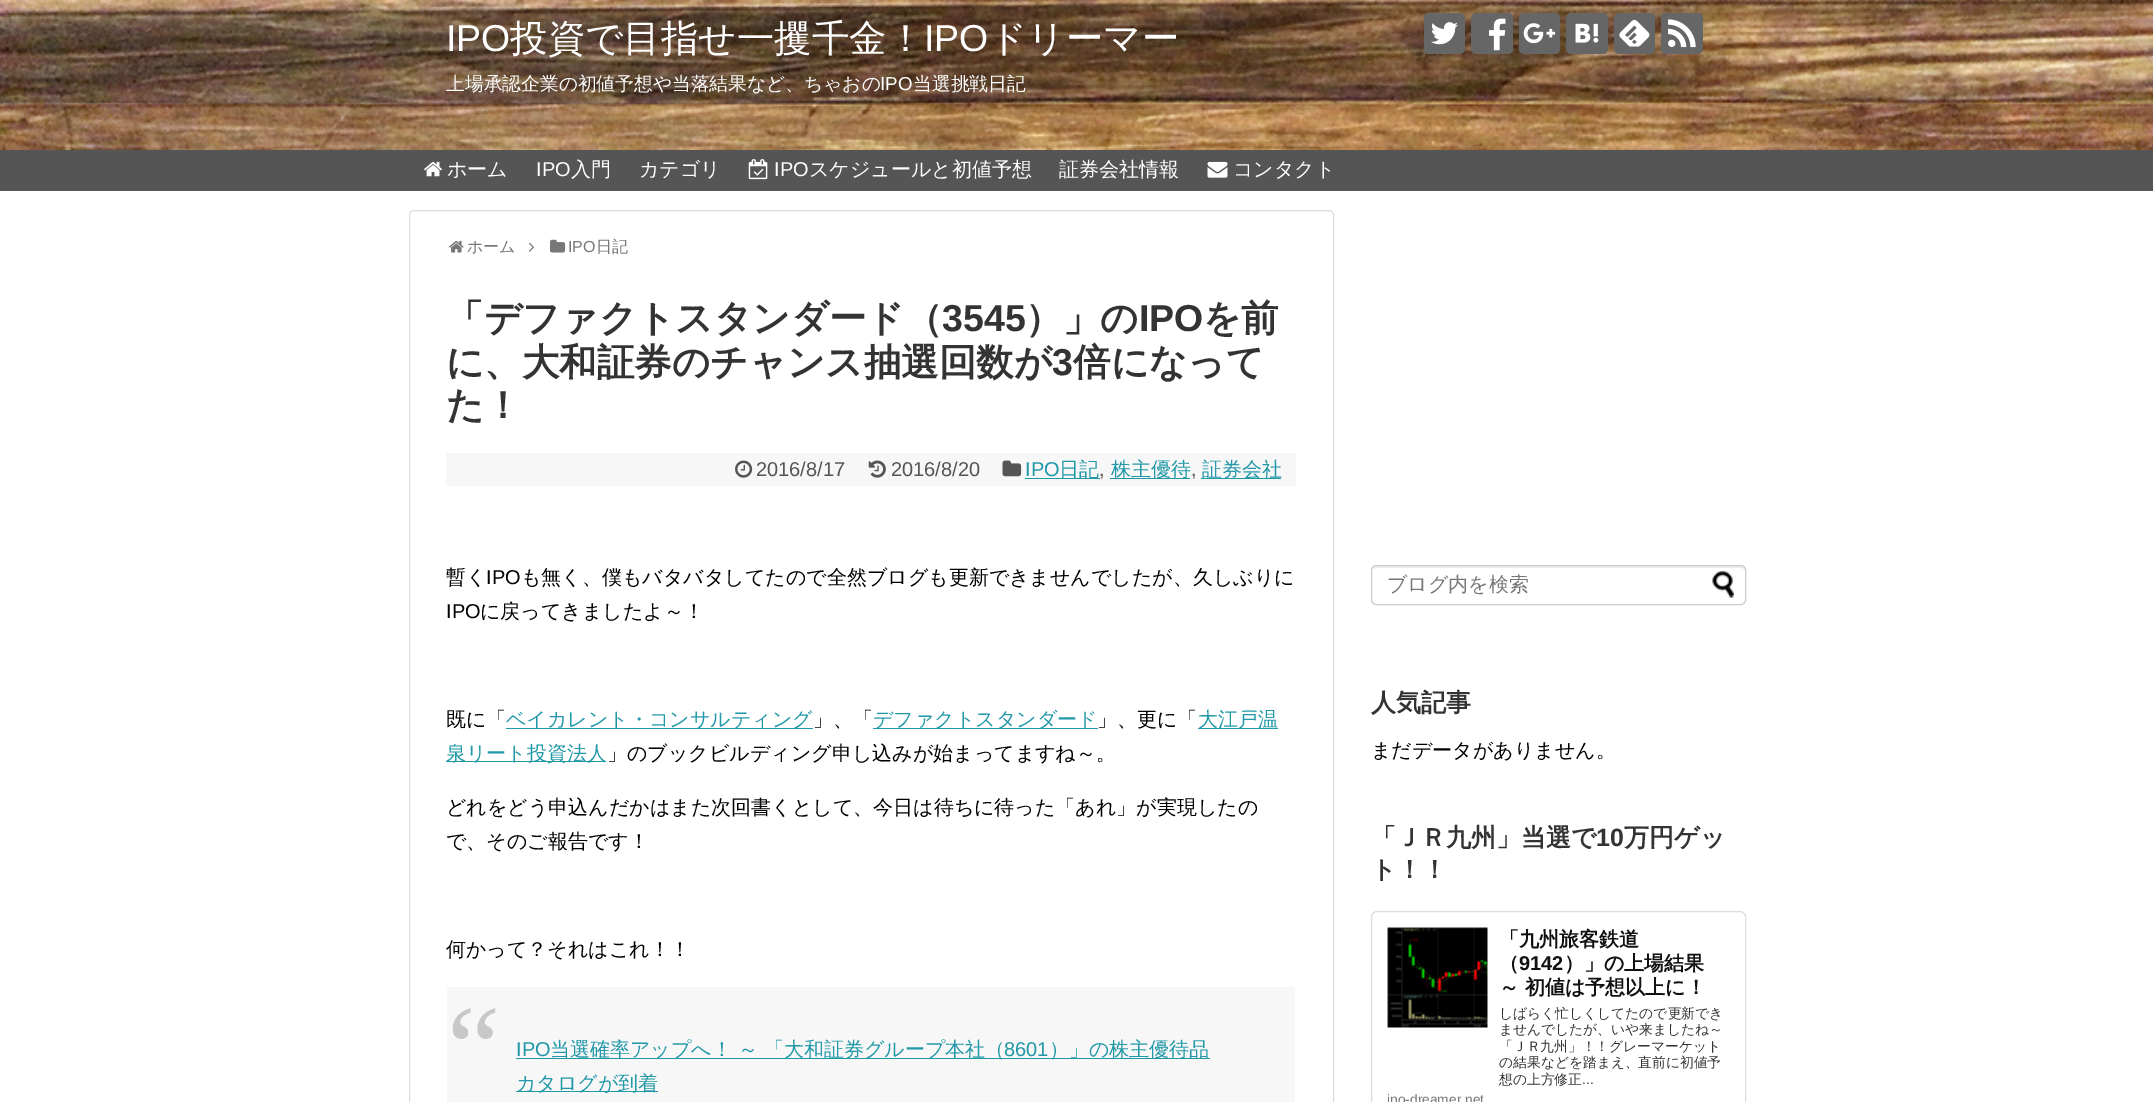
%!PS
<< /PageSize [2153 1102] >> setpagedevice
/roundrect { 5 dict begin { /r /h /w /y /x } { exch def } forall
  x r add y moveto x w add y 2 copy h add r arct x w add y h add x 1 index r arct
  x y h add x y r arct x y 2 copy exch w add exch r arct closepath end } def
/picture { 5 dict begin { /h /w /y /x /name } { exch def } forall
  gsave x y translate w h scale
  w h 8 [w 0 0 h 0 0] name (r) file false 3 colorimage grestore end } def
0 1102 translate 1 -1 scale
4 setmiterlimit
1 setgray
0 0 2153 1102 rectfill
(img1.rgb) 0 0 2153 150 picture
/LiberationSans-Regular [37.5 0 0 -37.5 0 0] selectfont
446 51 moveto (IPO) show
/WenQuanYiZenHei-Medium [37.5 0 0 -37.5 0 0] selectfont
510 51 moveto (投資で目指せ一攫千金！) show
/LiberationSans-Regular [37.5 0 0 -37.5 0 0] selectfont
924 51 moveto (IPO) show
/WenQuanYiZenHei-Medium [37.5 0 0 -37.5 0 0] selectfont
989 51 moveto (ドリーマー) show
/WenQuanYiZenHei-Medium [18.75 0 0 -18.75 0 0] selectfont
446 90 moveto (上場承認企業の初値予想や当落結果など、ちゃおの) show
/LiberationSans-Regular [18.75 0 0 -18.75 0 0] selectfont
880 90 moveto (IPO) show
/WenQuanYiZenHei-Medium [18.75 0 0 -18.75 0 0] selectfont
913 90 moveto (当選挑戦日記) show
0.4 setgray
1424 13 41 41 5 roundrect fill
(img2.rgb) 1431 22 27 23 picture
1471 13 42 41 5 roundrect fill
(img3.rgb) 1489 18 17 33 picture
1519 13 41 41 5 roundrect fill
(img4.rgb) 1523 23 33 21 picture
1566 13 42 41 5 roundrect fill
(img5.rgb) 1575 23 24 20 picture
1614 13 41 41 5 roundrect fill
(img6.rgb) 1619 19 31 28 picture
1661 13 42 41 5 roundrect fill
(img7.rgb) 1668 19 28 29 picture
0.333 setgray
0 150 2153 41 rectfill
(img8.rgb) 424 161 18 16 picture
/WenQuanYiZenHei-Medium [20 0 0 -20 0 0] selectfont
1 setgray
447 176 moveto (ホーム) show
/LiberationSans-Regular [20 0 0 -20 0 0] selectfont
536 176 moveto (IPO) show
/WenQuanYiZenHei-Medium [20 0 0 -20 0 0] selectfont
571 176 moveto (入門) show
639 176 moveto (カテゴリ) show
(img9.rgb) 748 159 20 21 picture
/LiberationSans-Regular [20 0 0 -20 0 0] selectfont
774 176 moveto (IPO) show
/WenQuanYiZenHei-Medium [20 0 0 -20 0 0] selectfont
809 176 moveto (スケジュールと初値予想) show
1059 176 moveto (証券会社情報) show
(img10.rgb) 1207 161 21 17 picture
1233 176 moveto (コンタクト) show
0.867 setgray
409.5 210.5 924 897 4.5 roundrect stroke
(img11.rgb) 449 240 15 13 picture
/WenQuanYiZenHei-Medium [16 0 0 -16 0 0] selectfont
0.467 setgray
467 252 moveto (ホーム) show
(img12.rgb) 528 242 7 10 picture
(img13.rgb) 550 239 16 14 picture
/LiberationSans-Regular [16 0 0 -16 0 0] selectfont
568 252 moveto (IPO) show
/WenQuanYiZenHei-Medium [16 0 0 -16 0 0] selectfont
596 252 moveto (日記) show
/WenQuanYiZenHei-Bold [37.5 0 0 -37.5 0 0] selectfont
0.2 setgray
446 331 moveto (「デファクトスタンダード（) show
/LiberationSans-Bold [37.5 0 0 -37.5 0 0] selectfont
942 331 moveto (3545) show
/WenQuanYiZenHei-Bold [37.5 0 0 -37.5 0 0] selectfont
1025 331 moveto (）」の) show
/LiberationSans-Bold [37.5 0 0 -37.5 0 0] selectfont
1139 331 moveto (IPO) show
/WenQuanYiZenHei-Bold [37.5 0 0 -37.5 0 0] selectfont
1203 331 moveto (を前) show
446 375 moveto (に、大和証券のチャンス抽選回数が) show
/LiberationSans-Bold [37.5 0 0 -37.5 0 0] selectfont
1052 375 moveto (3) show
/WenQuanYiZenHei-Bold [37.5 0 0 -37.5 0 0] selectfont
1073 375 moveto (倍になって) show
446 418 moveto (た！) show
0.969 setgray
446 453 850 33 rectfill
(img14.rgb) 735 460 18 18 picture
/LiberationSans-Regular [20 0 0 -20 0 0] selectfont
0.333 setgray
756 476 moveto (2016/8/17) show
(img15.rgb) 868 460 18 18 picture
891 476 moveto (2016/8/20) show
(img16.rgb) 1002 460 20 17 picture
0.125 0.596 0.659 setrgbcolor
1025 476 moveto (IPO) show
1025 478 75 1 rectfill
/WenQuanYiZenHei-Medium [20 0 0 -20 0 0] selectfont
1059 476 moveto (日記) show
/LiberationSans-Regular [20 0 0 -20 0 0] selectfont
0.333 setgray
1099 476 moveto (,) show
0.125 0.596 0.659 setrgbcolor
1110 478 80 1 rectfill
/WenQuanYiZenHei-Medium [20 0 0 -20 0 0] selectfont
1111 476 moveto (株主優待) show
/LiberationSans-Regular [20 0 0 -20 0 0] selectfont
0.333 setgray
1191 476 moveto (,) show
0.125 0.596 0.659 setrgbcolor
1201 478 80 1 rectfill
/WenQuanYiZenHei-Medium [20 0 0 -20 0 0] selectfont
1202 476 moveto (証券会社) show
0 setgray
446 584 moveto (暫く) show
/LiberationSans-Regular [20 0 0 -20 0 0] selectfont
486 584 moveto (IPO) show
/WenQuanYiZenHei-Medium [20 0 0 -20 0 0] selectfont
521 584 moveto (も無く、僕もバタバタしてたので全然ブログも更新できませんでしたが、久しぶりに) show
/LiberationSans-Regular [20 0 0 -20 0 0] selectfont
446 618 moveto (IPO) show
/WenQuanYiZenHei-Medium [20 0 0 -20 0 0] selectfont
480 618 moveto (に戻ってきましたよ～！) show
446 726 moveto (既に「) show
0.125 0.596 0.659 setrgbcolor
506 728 307 1 rectfill
506 726 moveto (ベイカレント・コンサルティング) show
0 setgray
813 726 moveto (」、「) show
0.125 0.596 0.659 setrgbcolor
873 728 225 1 rectfill
873 726 moveto (デファクトスタンダード) show
0 setgray
1097 726 moveto (」、更に「) show
0.125 0.596 0.659 setrgbcolor
1198 728 80 1 rectfill
1198 726 moveto (大江戸温) show
446 761 160 1 rectfill
446 760 moveto (泉リート投資法人) show
0 setgray
607 760 moveto (」のブックビルディング申し込みが始まってますね～。) show
446 814 moveto (どれをどう申込んだかはまた次回書くとして、今日は待ちに待った「あれ」が実現したの) show
446 848 moveto (で、そのご報告です！) show
446 956 moveto (何かって？それはこれ！！) show
0.969 setgray
447 987 848 115 rectfill
/LiberationSerif-Regular [120 0 0 -120 0 0] selectfont
0.784 setgray
447 1088 moveto (“) show
/LiberationSans-Regular [20 0 0 -20 0 0] selectfont
0.125 0.596 0.659 setrgbcolor
516 1056 moveto (IPO) show
516 1058 694 1 rectfill
/WenQuanYiZenHei-Medium [20 0 0 -20 0 0] selectfont
550 1056 moveto (当選確率アップへ！ ～ 「大和証券グループ本社（) show
/LiberationSans-Regular [20 0 0 -20 0 0] selectfont
1004 1056 moveto (8601) show
/WenQuanYiZenHei-Medium [20 0 0 -20 0 0] selectfont
1049 1056 moveto (）」の株主優待品) show
516 1091 142 1 rectfill
516 1090 moveto (カタログが到着) show
0.925 setgray
newpath 1376 568 moveto 1741 568 lineto 1743 568 1745 569 1745 571 curveto 1745 570 lineto 1745 568 1743 566 1741 566 curveto 1377 566 lineto 1375 566 1374 567 1373 569 curveto closepath fill
0.8 setgray
1371.5 565.5 374 39 4.5 roundrect stroke
0.467 setgray
1387 591 moveto (ブログ内を検索) show
(img17.rgb) 1712 571 22 27 picture
/WenQuanYiZenHei-Bold [25 0 0 -25 0 0] selectfont
0.2 setgray
1371 711 moveto (人気記事) show
/WenQuanYiZenHei-Medium [20 0 0 -20 0 0] selectfont
0 setgray
1371 757 moveto (まだデータがありません。) show
/WenQuanYiZenHei-Bold [25 0 0 -25 0 0] selectfont
0.2 setgray
1371 846 moveto (「ＪＲ九州」当選で) show
/LiberationSans-Bold [25 0 0 -25 0 0] selectfont
1596 846 moveto (10) show
/WenQuanYiZenHei-Bold [25 0 0 -25 0 0] selectfont
1624 846 moveto (万円ゲッ) show
1371 878 moveto (ト！！) show
0.867 setgray
1371.5 911.5 374 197 5.5 roundrect stroke
(img18.rgb) 1387 927 101 101 picture
/WenQuanYiZenHei-Bold [20 0 0 -20 0 0] selectfont
0.067 setgray
1499 946 moveto (「九州旅客鉄道) show
1499 970 moveto (（) show
/LiberationSans-Bold [20 0 0 -20 0 0] selectfont
1519 970 moveto (9142) show
/WenQuanYiZenHei-Bold [20 0 0 -20 0 0] selectfont
1564 970 moveto (）」の上場結果) show
1499 994 moveto (～ 初値は予想以上に！) show
/WenQuanYiZenHei-Medium [13.75 0 0 -13.75 0 0] selectfont
0.2 setgray
1499 1018 moveto (しばらく忙しくしてたので更新でき) show
1499 1034 moveto (ませんでしたが、いや来ましたね～) show
1499 1051 moveto (「ＪＲ九州」！！グレーマーケット) show
1499 1067 moveto (の結果などを踏まえ、直前に初値予) show
1499 1084 moveto (想の上方修正) show
/LiberationSans-Regular [13.75 0 0 -13.75 0 0] selectfont
1582 1084 moveto (...) show
0.467 setgray
1387 1104 moveto (ipo-dreamer.net) show
showpage
